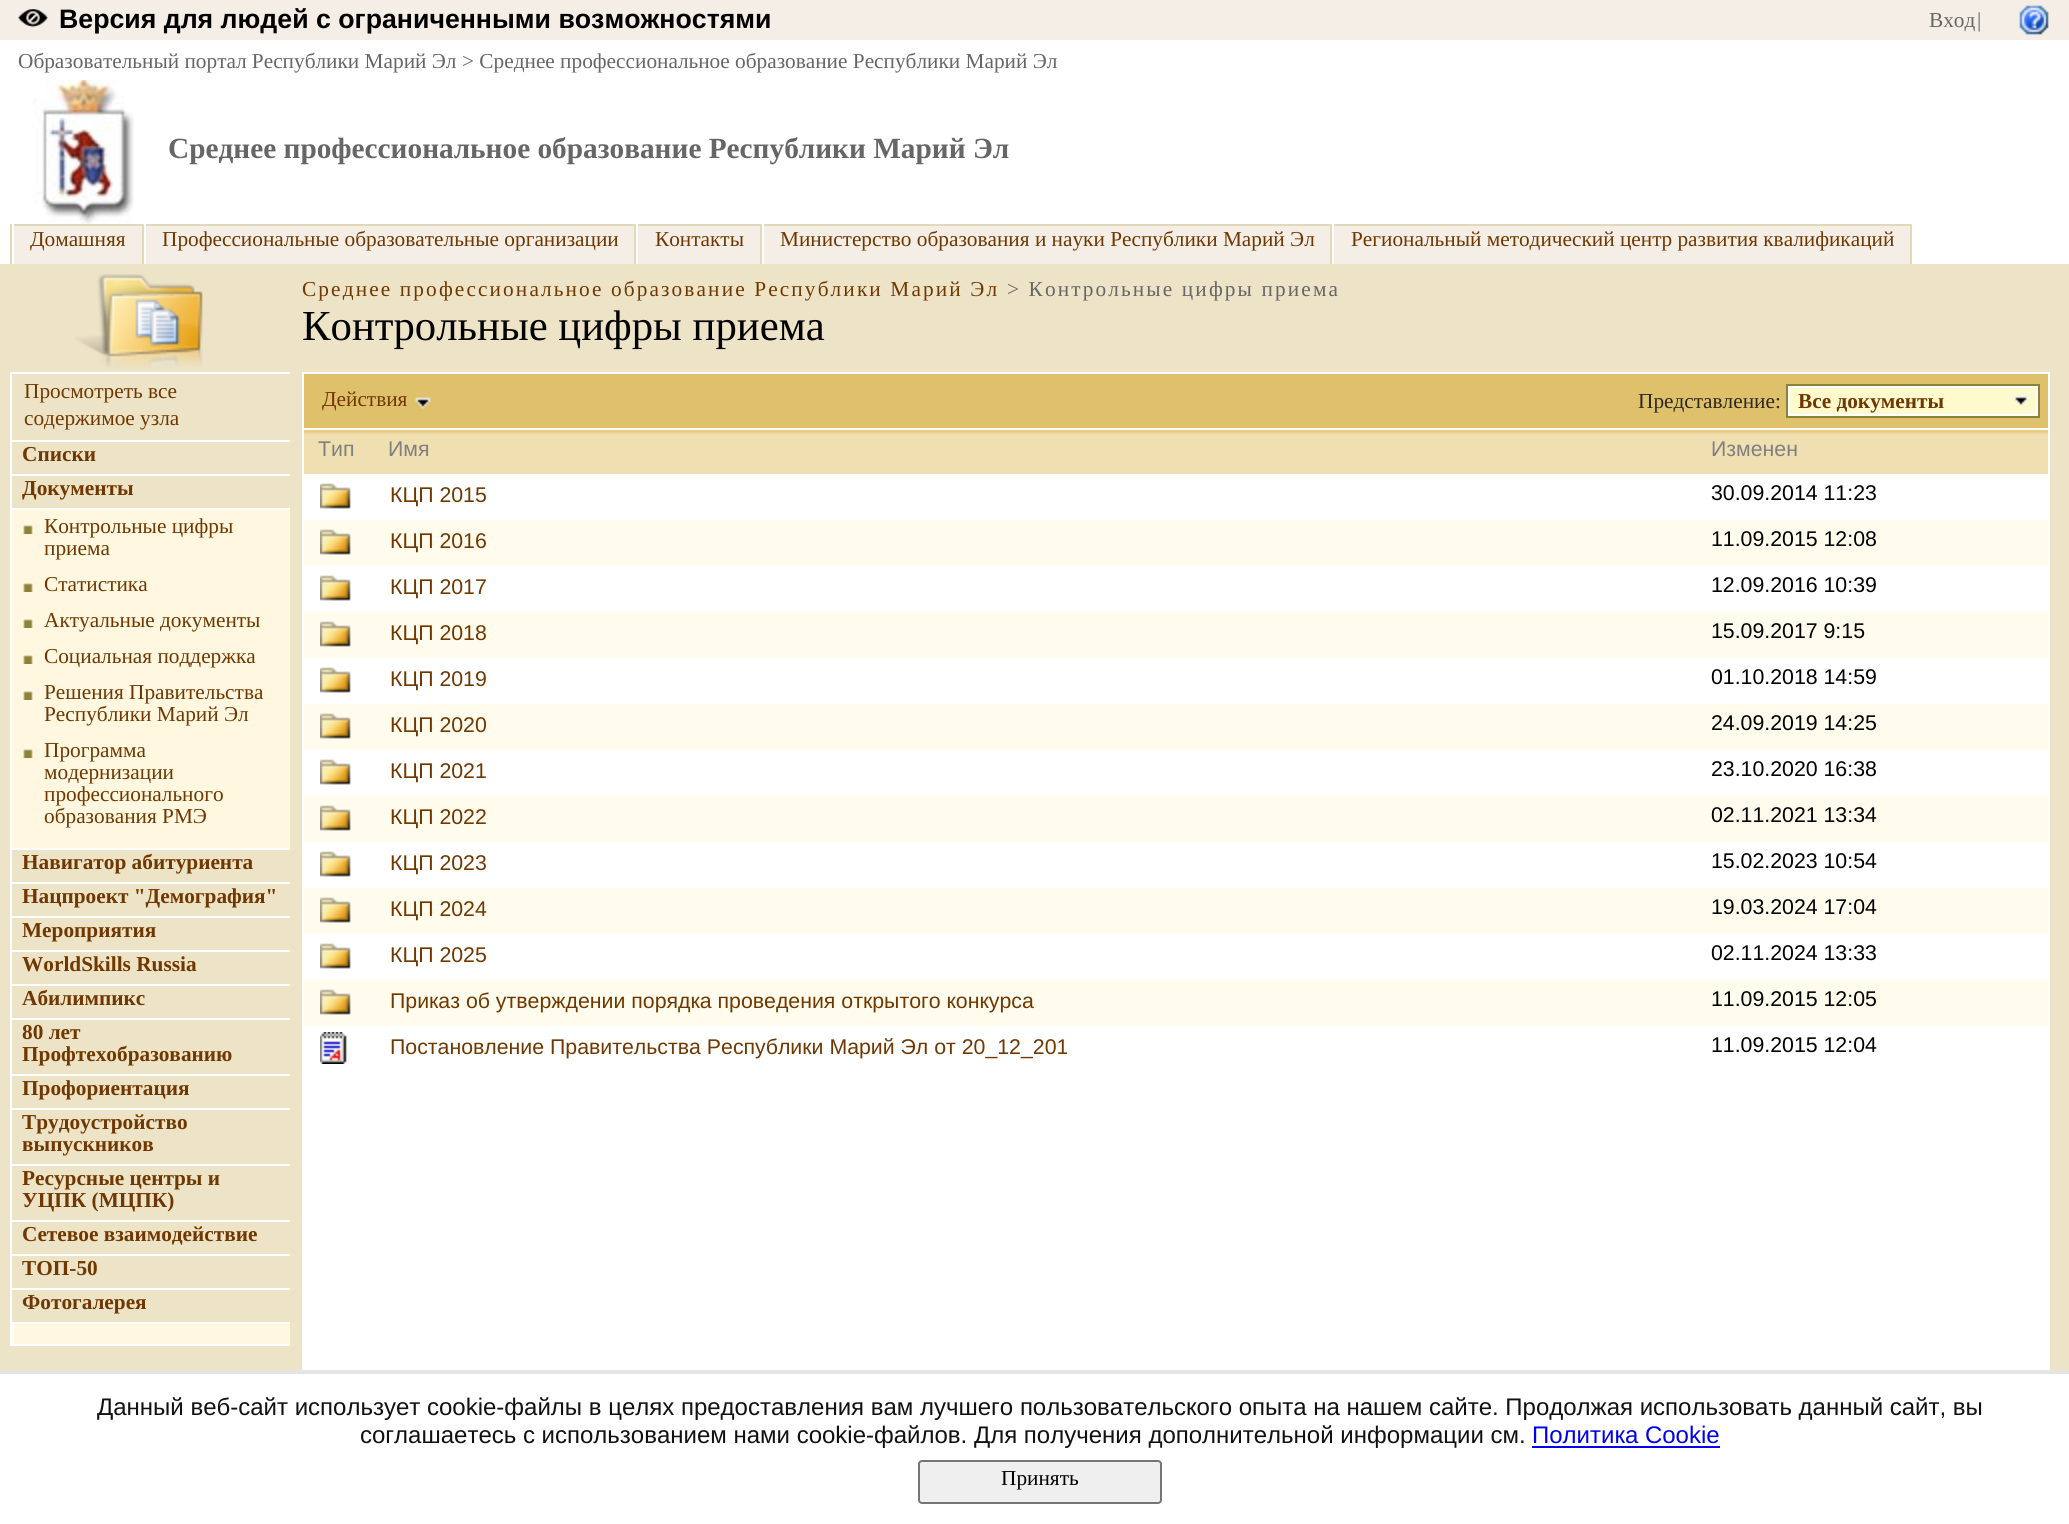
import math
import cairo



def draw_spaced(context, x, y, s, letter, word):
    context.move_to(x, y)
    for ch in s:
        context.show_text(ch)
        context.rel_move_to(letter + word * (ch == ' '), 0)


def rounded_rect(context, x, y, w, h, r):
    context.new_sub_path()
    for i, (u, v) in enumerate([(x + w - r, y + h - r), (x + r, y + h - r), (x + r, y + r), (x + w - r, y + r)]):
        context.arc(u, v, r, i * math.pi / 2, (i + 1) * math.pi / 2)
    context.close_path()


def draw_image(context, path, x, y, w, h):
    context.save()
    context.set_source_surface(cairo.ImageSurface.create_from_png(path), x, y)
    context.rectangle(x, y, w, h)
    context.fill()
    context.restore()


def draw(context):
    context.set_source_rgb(1, 1, 1)
    context.paint()
    context.set_source_rgb(244 / 255, 238 / 255, 230 / 255)
    context.rectangle(0, 0, 2069, 40)
    context.fill()
    draw_image(context, "images/1.png", 18, 8, 30, 20)
    draw_image(context, "images/2.png", 2019, 5, 30, 30)
    draw_image(context, "images/3.png", 33, 80, 101, 144)
    context.set_source_rgb(226 / 255, 216 / 255, 186 / 255)
    context.rectangle(10, 224, 2, 40)
    context.fill()
    context.set_source_rgb(244 / 255, 238 / 255, 230 / 255)
    context.rectangle(14, 226, 128, 38)
    context.fill()
    context.set_source_rgb(226 / 255, 216 / 255, 186 / 255)
    context.rectangle(12, 224, 1900, 2)
    context.fill()
    context.rectangle(142, 224, 2, 40)
    context.fill()
    context.set_source_rgb(1, 1, 1)
    context.rectangle(12, 224, 2, 2)
    context.fill()
    context.set_source_rgb(244 / 255, 238 / 255, 230 / 255)
    context.rectangle(146, 226, 488, 38)
    context.fill()
    context.set_source_rgb(226 / 255, 216 / 255, 186 / 255)
    context.rectangle(634, 224, 2, 40)
    context.fill()
    context.set_source_rgb(1, 1, 1)
    context.rectangle(144, 224, 2, 2)
    context.fill()
    context.set_source_rgb(244 / 255, 238 / 255, 230 / 255)
    context.rectangle(638, 226, 122, 38)
    context.fill()
    context.set_source_rgb(226 / 255, 216 / 255, 186 / 255)
    context.rectangle(760, 224, 2, 40)
    context.fill()
    context.set_source_rgb(1, 1, 1)
    context.rectangle(636, 224, 2, 2)
    context.fill()
    context.set_source_rgb(244 / 255, 238 / 255, 230 / 255)
    context.rectangle(764, 226, 566, 38)
    context.fill()
    context.set_source_rgb(226 / 255, 216 / 255, 186 / 255)
    context.rectangle(1330, 224, 2, 40)
    context.fill()
    context.set_source_rgb(1, 1, 1)
    context.rectangle(762, 224, 2, 2)
    context.fill()
    context.set_source_rgb(244 / 255, 238 / 255, 230 / 255)
    context.rectangle(1334, 226, 576, 38)
    context.fill()
    context.set_source_rgb(226 / 255, 216 / 255, 186 / 255)
    context.rectangle(1910, 224, 2, 40)
    context.fill()
    context.set_source_rgb(1, 1, 1)
    context.rectangle(1332, 224, 2, 2)
    context.fill()
    context.set_source_rgb(237 / 255, 227 / 255, 199 / 255)
    context.rectangle(0, 264, 2069, 108)
    context.fill()
    draw_image(context, "images/4.png", 75, 274, 128, 95)
    context.rectangle(0, 372, 290, 998)
    context.fill()
    context.set_source_rgb(1, 247 / 255, 224 / 255)
    context.rectangle(12, 510, 278, 834)
    context.fill()
    context.rectangle(11, 373, 280, 972)
    context.set_source_rgb(1, 1, 1)
    context.stroke()
    context.rectangle(12, 440, 280, 2)
    context.fill()
    context.rectangle(12, 474, 280, 2)
    context.fill()
    context.rectangle(12, 508, 280, 2)
    context.fill()
    draw_image(context, "images/5.png", 23, 525, 10, 9)
    draw_image(context, "images/5.png", 23, 583, 10, 9)
    draw_image(context, "images/5.png", 23, 619, 10, 9)
    draw_image(context, "images/5.png", 23, 655, 10, 9)
    draw_image(context, "images/5.png", 23, 691, 10, 9)
    draw_image(context, "images/5.png", 23, 749, 10, 9)
    context.rectangle(12, 848, 280, 2)
    context.fill()
    context.set_source_rgb(237 / 255, 227 / 255, 199 / 255)
    context.rectangle(12, 850, 278, 32)
    context.fill()
    context.set_source_rgb(1, 1, 1)
    context.rectangle(12, 882, 280, 2)
    context.fill()
    context.set_source_rgb(237 / 255, 227 / 255, 199 / 255)
    context.rectangle(12, 884, 278, 32)
    context.fill()
    context.set_source_rgb(1, 1, 1)
    context.rectangle(12, 916, 280, 2)
    context.fill()
    context.set_source_rgb(237 / 255, 227 / 255, 199 / 255)
    context.rectangle(12, 918, 278, 32)
    context.fill()
    context.set_source_rgb(1, 1, 1)
    context.rectangle(12, 950, 280, 2)
    context.fill()
    context.set_source_rgb(237 / 255, 227 / 255, 199 / 255)
    context.rectangle(12, 952, 278, 32)
    context.fill()
    context.set_source_rgb(1, 1, 1)
    context.rectangle(12, 984, 280, 2)
    context.fill()
    context.set_source_rgb(237 / 255, 227 / 255, 199 / 255)
    context.rectangle(12, 986, 278, 32)
    context.fill()
    context.set_source_rgb(1, 1, 1)
    context.rectangle(12, 1018, 280, 2)
    context.fill()
    context.set_source_rgb(237 / 255, 227 / 255, 199 / 255)
    context.rectangle(12, 1020, 278, 54)
    context.fill()
    context.set_source_rgb(1, 1, 1)
    context.rectangle(12, 1074, 280, 2)
    context.fill()
    context.set_source_rgb(237 / 255, 227 / 255, 199 / 255)
    context.rectangle(12, 1076, 278, 32)
    context.fill()
    context.set_source_rgb(1, 1, 1)
    context.rectangle(12, 1108, 280, 2)
    context.fill()
    context.set_source_rgb(237 / 255, 227 / 255, 199 / 255)
    context.rectangle(12, 1110, 278, 54)
    context.fill()
    context.set_source_rgb(1, 1, 1)
    context.rectangle(12, 1164, 280, 2)
    context.fill()
    context.set_source_rgb(237 / 255, 227 / 255, 199 / 255)
    context.rectangle(12, 1166, 278, 54)
    context.fill()
    context.set_source_rgb(1, 1, 1)
    context.rectangle(12, 1220, 280, 2)
    context.fill()
    context.set_source_rgb(237 / 255, 227 / 255, 199 / 255)
    context.rectangle(12, 1222, 278, 32)
    context.fill()
    context.set_source_rgb(1, 1, 1)
    context.rectangle(12, 1254, 280, 2)
    context.fill()
    context.set_source_rgb(237 / 255, 227 / 255, 199 / 255)
    context.rectangle(12, 1256, 278, 32)
    context.fill()
    context.set_source_rgb(1, 1, 1)
    context.rectangle(12, 1288, 280, 2)
    context.fill()
    context.set_source_rgb(237 / 255, 227 / 255, 199 / 255)
    context.rectangle(12, 1290, 278, 32)
    context.fill()
    context.set_source_rgb(1, 1, 1)
    context.rectangle(12, 1322, 278, 2)
    context.fill()
    context.rectangle(12, 1324, 2, 20)
    context.fill()
    context.set_source_rgb(237 / 255, 227 / 255, 199 / 255)
    context.rectangle(290, 372, 12, 998)
    context.fill()
    context.set_source_rgb(224 / 255, 193 / 255, 107 / 255)
    context.rectangle(304, 374, 1744, 54)
    context.fill()
    draw_image(context, "images/6.png", 415, 397, 16, 12)
    context.set_source_rgb(1, 249 / 255, 206 / 255)
    context.rectangle(1790, 388, 246, 26)
    context.fill()
    context.rectangle(1787, 385, 252, 32)
    context.set_source_rgb(140 / 255, 130 / 255, 57 / 255)
    context.stroke()
    draw_image(context, "images/7.png", 2013, 395, 16, 12)
    context.rectangle(1789, 387, 248, 28)
    context.set_source_rgb(1, 1, 1)
    context.stroke()
    context.set_source_rgb(239 / 255, 223 / 255, 177 / 255)
    context.rectangle(304, 434, 1744, 40)
    context.fill()
    draw_image(context, "images/8.png", 304, 430, 70, 4)
    draw_image(context, "images/9.png", 374, 430, 1324, 4)
    draw_image(context, "images/10.png", 1698, 430, 350, 4)
    draw_image(context, "images/11.png", 320, 483, 31, 26)
    context.set_source_rgb(1, 252 / 255, 237 / 255)
    context.rectangle(304, 520, 1744, 46)
    context.fill()
    draw_image(context, "images/12.png", 320, 529, 31, 26)
    draw_image(context, "images/11.png", 320, 575, 31, 26)
    context.rectangle(304, 612, 1744, 46)
    context.fill()
    draw_image(context, "images/12.png", 320, 621, 31, 26)
    draw_image(context, "images/11.png", 320, 667, 31, 26)
    context.rectangle(304, 704, 1744, 46)
    context.fill()
    draw_image(context, "images/12.png", 320, 713, 31, 26)
    draw_image(context, "images/11.png", 320, 759, 31, 26)
    context.rectangle(304, 796, 1744, 46)
    context.fill()
    draw_image(context, "images/12.png", 320, 805, 31, 26)
    draw_image(context, "images/11.png", 320, 851, 31, 26)
    context.rectangle(304, 888, 1744, 46)
    context.fill()
    draw_image(context, "images/12.png", 320, 897, 31, 26)
    draw_image(context, "images/11.png", 320, 943, 31, 26)
    context.rectangle(304, 980, 1744, 46)
    context.fill()
    draw_image(context, "images/12.png", 320, 989, 31, 26)
    draw_image(context, "images/13.png", 320, 1032, 27, 32)
    context.set_source_rgb(237 / 255, 227 / 255, 199 / 255)
    context.rectangle(2050, 372, 19, 998)
    context.fill()
    context.set_source_rgb(227 / 255, 227 / 255, 227 / 255)
    context.rectangle(0, 1370, 2069, 4)
    context.fill()
    context.set_source_rgb(0, 0, 238 / 255)
    context.rectangle(1532, 1446, 188, 2)
    context.fill()
    context.set_source_rgb(239 / 255, 239 / 255, 239 / 255)
    rounded_rect(context, 919, 1461, 242, 42, 3)
    context.fill_preserve()
    context.set_source_rgb(118 / 255, 118 / 255, 118 / 255)
    context.stroke()
    context.select_font_face("Liberation Sans", cairo.FontSlant.NORMAL, cairo.FontWeight.BOLD)
    context.set_font_size(26.7)
    context.set_source_rgb(0, 0, 0)
    context.move_to(59, 28)
    context.show_text("Версия для людей с ограниченными возможностями")
    context.select_font_face("Liberation Serif")
    context.set_font_size(21.3)
    context.set_source_rgb(102 / 255, 102 / 255, 102 / 255)
    context.move_to(1929, 27)
    context.show_text("Вход")
    context.move_to(1977, 27)
    context.show_text("|")
    context.move_to(18, 68)
    context.show_text("Образовательный портал Республики Марий Эл")
    context.move_to(462, 68)
    context.show_text("> Среднее профессиональное образование Республики Марий Эл")
    context.select_font_face("Liberation Serif", cairo.FontSlant.NORMAL, cairo.FontWeight.BOLD)
    context.set_font_size(29.3)
    context.move_to(168, 158)
    context.show_text("Среднее профессиональное образование Республики Марий Эл")
    context.select_font_face("Liberation Serif")
    context.set_font_size(21.3)
    context.set_source_rgb(112 / 255, 56 / 255, 0)
    context.move_to(30, 246)
    context.show_text("Домашняя")
    context.move_to(162, 246)
    context.show_text("Профессиональные образовательные организации")
    context.move_to(655, 246)
    context.show_text("Контакты")
    context.move_to(780, 246)
    context.show_text("Министерство образования и науки Республики Марий Эл")
    context.move_to(1351, 246)
    context.show_text("Региональный методический центр развития квалификаций")
    draw_spaced(context, 302, 296, "Среднее профессиональное образование Республики Марий Эл", 2.13, 0)
    context.set_source_rgb(102 / 255, 102 / 255, 102 / 255)
    draw_spaced(context, 1007, 296, "> Контрольные цифры приема", 2.13, 0)
    context.set_font_size(42.75)
    context.set_source_rgb(0, 0, 0)
    context.move_to(302, 340)
    context.show_text("Контрольные цифры приема")
    context.set_font_size(21.3)
    context.set_source_rgb(112 / 255, 56 / 255, 0)
    context.move_to(24, 398)
    context.show_text("Просмотреть все")
    context.move_to(24, 425)
    context.show_text("содержимое узла")
    context.select_font_face("Liberation Serif", cairo.FontSlant.NORMAL, cairo.FontWeight.BOLD)
    context.move_to(22, 461)
    context.show_text("Списки")
    context.move_to(22, 495)
    context.show_text("Документы")
    context.select_font_face("Liberation Serif")
    context.move_to(44, 533)
    context.show_text("Контрольные цифры")
    context.move_to(44, 555)
    context.show_text("приема")
    context.move_to(44, 591)
    context.show_text("Статистика")
    context.move_to(44, 627)
    context.show_text("Актуальные документы")
    context.move_to(44, 663)
    context.show_text("Социальная поддержка")
    context.move_to(44, 699)
    context.show_text("Решения Правительства")
    context.move_to(44, 721)
    context.show_text("Республики Марий Эл")
    context.move_to(44, 757)
    context.show_text("Программа")
    context.move_to(44, 779)
    context.show_text("модернизации")
    context.move_to(44, 801)
    context.show_text("профессионального")
    context.move_to(44, 823)
    context.show_text("образования РМЭ")
    context.select_font_face("Liberation Serif", cairo.FontSlant.NORMAL, cairo.FontWeight.BOLD)
    context.move_to(22, 869)
    context.show_text("Навигатор абитуриента")
    context.move_to(22, 903)
    context.show_text("Нацпроект \"Демография\"")
    context.move_to(22, 937)
    context.show_text("Мероприятия")
    context.move_to(22, 971)
    context.show_text("WorldSkills Russia")
    context.move_to(22, 1005)
    context.show_text("Абилимпикс")
    context.move_to(22, 1039)
    context.show_text("80 лет")
    context.move_to(22, 1061)
    context.show_text("Профтехобразованию")
    context.move_to(22, 1095)
    context.show_text("Профориентация")
    context.move_to(22, 1129)
    context.show_text("Трудоустройство")
    context.move_to(22, 1151)
    context.show_text("выпускников")
    context.move_to(22, 1185)
    context.show_text("Ресурсные центры и")
    context.move_to(22, 1207)
    context.show_text("УЦПК (МЦПК)")
    context.move_to(22, 1241)
    context.show_text("Сетевое взаимодействие")
    context.move_to(22, 1275)
    context.show_text("ТОП-50")
    context.move_to(22, 1309)
    context.show_text("Фотогалерея")
    context.select_font_face("Liberation Serif")
    context.move_to(322, 406)
    context.show_text("Действия")
    context.set_source_rgb(43 / 255, 40 / 255, 32 / 255)
    context.move_to(1638, 408)
    context.show_text("Представление:")
    context.select_font_face("Liberation Serif", cairo.FontSlant.NORMAL, cairo.FontWeight.BOLD)
    context.set_source_rgb(112 / 255, 56 / 255, 0)
    context.move_to(1798, 408)
    context.show_text("Все документы")
    context.select_font_face("Liberation Sans")
    context.set_source_rgb(128 / 255, 128 / 255, 128 / 255)
    context.move_to(318, 456)
    context.show_text("Тип")
    context.move_to(388, 456)
    context.show_text("Имя")
    context.move_to(1711, 456)
    context.show_text("Изменен")
    context.set_source_rgb(112 / 255, 56 / 255, 0)
    context.move_to(390, 502)
    context.show_text("КЦП 2015")
    context.set_source_rgb(0, 0, 0)
    context.move_to(1711, 500)
    context.show_text("30.09.2014 11:23")
    context.set_source_rgb(112 / 255, 56 / 255, 0)
    context.move_to(390, 548)
    context.show_text("КЦП 2016")
    context.set_source_rgb(0, 0, 0)
    context.move_to(1711, 546)
    context.show_text("11.09.2015 12:08")
    context.set_source_rgb(112 / 255, 56 / 255, 0)
    context.move_to(390, 594)
    context.show_text("КЦП 2017")
    context.set_source_rgb(0, 0, 0)
    context.move_to(1711, 592)
    context.show_text("12.09.2016 10:39")
    context.set_source_rgb(112 / 255, 56 / 255, 0)
    context.move_to(390, 640)
    context.show_text("КЦП 2018")
    context.set_source_rgb(0, 0, 0)
    context.move_to(1711, 638)
    context.show_text("15.09.2017 9:15")
    context.set_source_rgb(112 / 255, 56 / 255, 0)
    context.move_to(390, 686)
    context.show_text("КЦП 2019")
    context.set_source_rgb(0, 0, 0)
    context.move_to(1711, 684)
    context.show_text("01.10.2018 14:59")
    context.set_source_rgb(112 / 255, 56 / 255, 0)
    context.move_to(390, 732)
    context.show_text("КЦП 2020")
    context.set_source_rgb(0, 0, 0)
    context.move_to(1711, 730)
    context.show_text("24.09.2019 14:25")
    context.set_source_rgb(112 / 255, 56 / 255, 0)
    context.move_to(390, 778)
    context.show_text("КЦП 2021")
    context.set_source_rgb(0, 0, 0)
    context.move_to(1711, 776)
    context.show_text("23.10.2020 16:38")
    context.set_source_rgb(112 / 255, 56 / 255, 0)
    context.move_to(390, 824)
    context.show_text("КЦП 2022")
    context.set_source_rgb(0, 0, 0)
    context.move_to(1711, 822)
    context.show_text("02.11.2021 13:34")
    context.set_source_rgb(112 / 255, 56 / 255, 0)
    context.move_to(390, 870)
    context.show_text("КЦП 2023")
    context.set_source_rgb(0, 0, 0)
    context.move_to(1711, 868)
    context.show_text("15.02.2023 10:54")
    context.set_source_rgb(112 / 255, 56 / 255, 0)
    context.move_to(390, 916)
    context.show_text("КЦП 2024")
    context.set_source_rgb(0, 0, 0)
    context.move_to(1711, 914)
    context.show_text("19.03.2024 17:04")
    context.set_source_rgb(112 / 255, 56 / 255, 0)
    context.move_to(390, 962)
    context.show_text("КЦП 2025")
    context.set_source_rgb(0, 0, 0)
    context.move_to(1711, 960)
    context.show_text("02.11.2024 13:33")
    context.set_source_rgb(112 / 255, 56 / 255, 0)
    context.move_to(390, 1008)
    context.show_text("Приказ об утверждении порядка проведения открытого конкурса")
    context.set_source_rgb(0, 0, 0)
    context.move_to(1711, 1006)
    context.show_text("11.09.2015 12:05")
    context.set_source_rgb(112 / 255, 56 / 255, 0)
    context.move_to(390, 1054)
    context.show_text("Постановление Правительства Республики Марий Эл от 20_12_201")
    context.set_source_rgb(0, 0, 0)
    context.move_to(1711, 1052)
    context.show_text("11.09.2015 12:04")
    context.set_font_size(24)
    context.set_source_rgb(17 / 255, 17 / 255, 17 / 255)
    context.move_to(97, 1415)
    context.show_text("Данный веб-сайт использует cookie-файлы в целях предоставления вам лучшего пользовательского опыта на нашем сайте. Продолжая использовать данный сайт, вы")
    context.move_to(360, 1443)
    context.show_text("соглашаетесь с использованием нами cookie-файлов. Для получения дополнительной информации см.")
    context.set_source_rgb(0, 0, 238 / 255)
    context.move_to(1532, 1443)
    context.show_text("Политика Cookie")
    context.select_font_face("Liberation Serif")
    context.set_font_size(21.3)
    context.set_source_rgb(0, 0, 0)
    context.move_to(1001, 1485)
    context.show_text("Принять")


surface = cairo.ImageSurface(cairo.Format.RGB24, 2069, 1524)
context = cairo.Context(surface)
options = cairo.FontOptions()
options.set_hint_metrics(cairo.HintMetrics.OFF)
options.set_hint_style(cairo.HintStyle.NONE)
context.set_font_options(options)
context.set_miter_limit(4)
draw(context)
surface.write_to_png("out.png")
